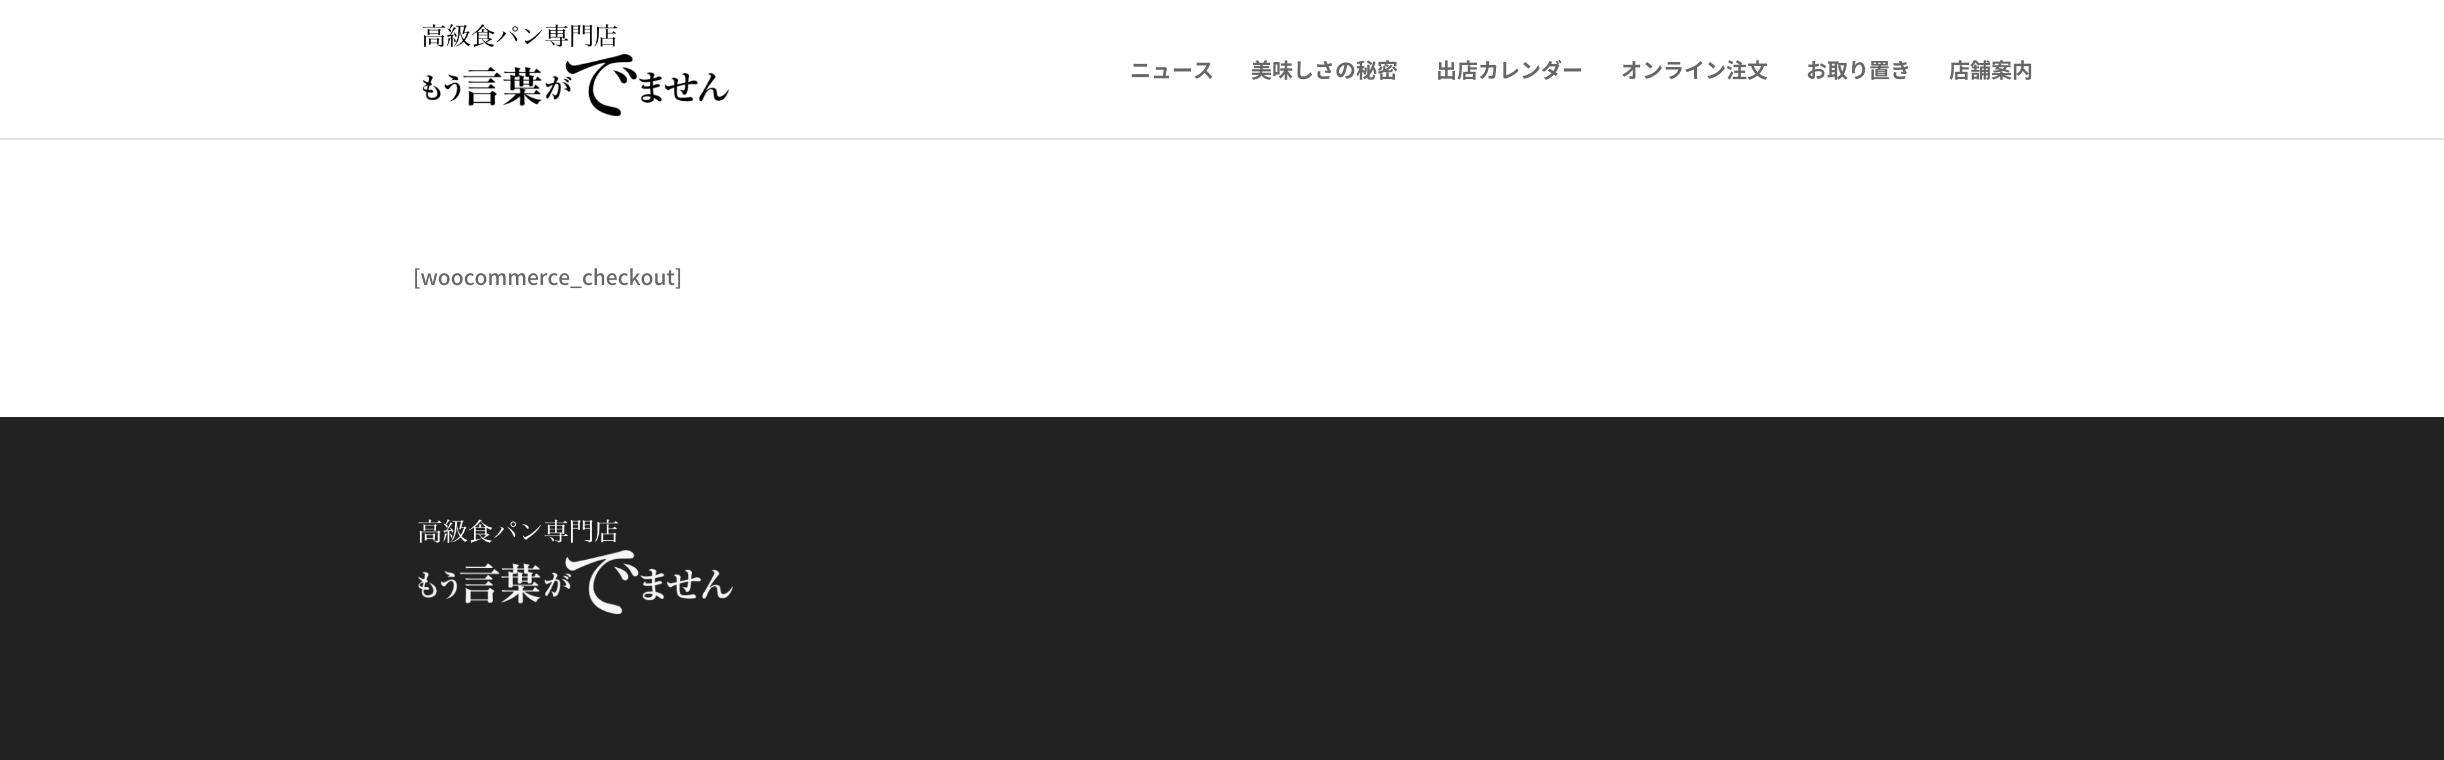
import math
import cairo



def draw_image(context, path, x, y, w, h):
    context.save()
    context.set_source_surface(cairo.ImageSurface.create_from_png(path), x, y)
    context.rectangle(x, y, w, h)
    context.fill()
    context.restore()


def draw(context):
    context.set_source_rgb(1, 1, 1)
    context.paint()
    context.set_source_rgb(230 / 255, 230 / 255, 230 / 255)
    context.rectangle(0, 138, 2444, 2)
    context.fill()
    draw_image(context, "images/1.png", 422, 24, 307, 93)
    context.set_source_rgb(34 / 255, 34 / 255, 34 / 255)
    context.rectangle(0, 417, 2444, 343)
    context.fill()
    draw_image(context, "images/2.png", 418, 519, 315, 96)
    context.select_font_face("Noto Sans JP", cairo.FontSlant.NORMAL, cairo.FontWeight.BOLD)
    context.set_font_size(21)
    context.set_source_rgb(102 / 255, 102 / 255, 102 / 255)
    context.move_to(1130, 78)
    context.show_text("ニュース")
    context.move_to(1251, 78)
    context.show_text("美味しさの秘密")
    context.move_to(1436, 78)
    context.show_text("出店カレンダー")
    context.move_to(1621, 78)
    context.show_text("オンライン注文")
    context.move_to(1806, 78)
    context.show_text("お取り置き")
    context.move_to(1949, 78)
    context.show_text("店舗案内")
    context.select_font_face("Noto Sans JP Medium")
    context.move_to(413, 285)
    context.show_text("[woocommerce_checkout]")


surface = cairo.ImageSurface(cairo.Format.RGB24, 2444, 760)
context = cairo.Context(surface)
options = cairo.FontOptions()
options.set_hint_metrics(cairo.HintMetrics.OFF)
options.set_hint_style(cairo.HintStyle.NONE)
context.set_font_options(options)
context.set_miter_limit(4)
draw(context)
surface.write_to_png("out.png")
